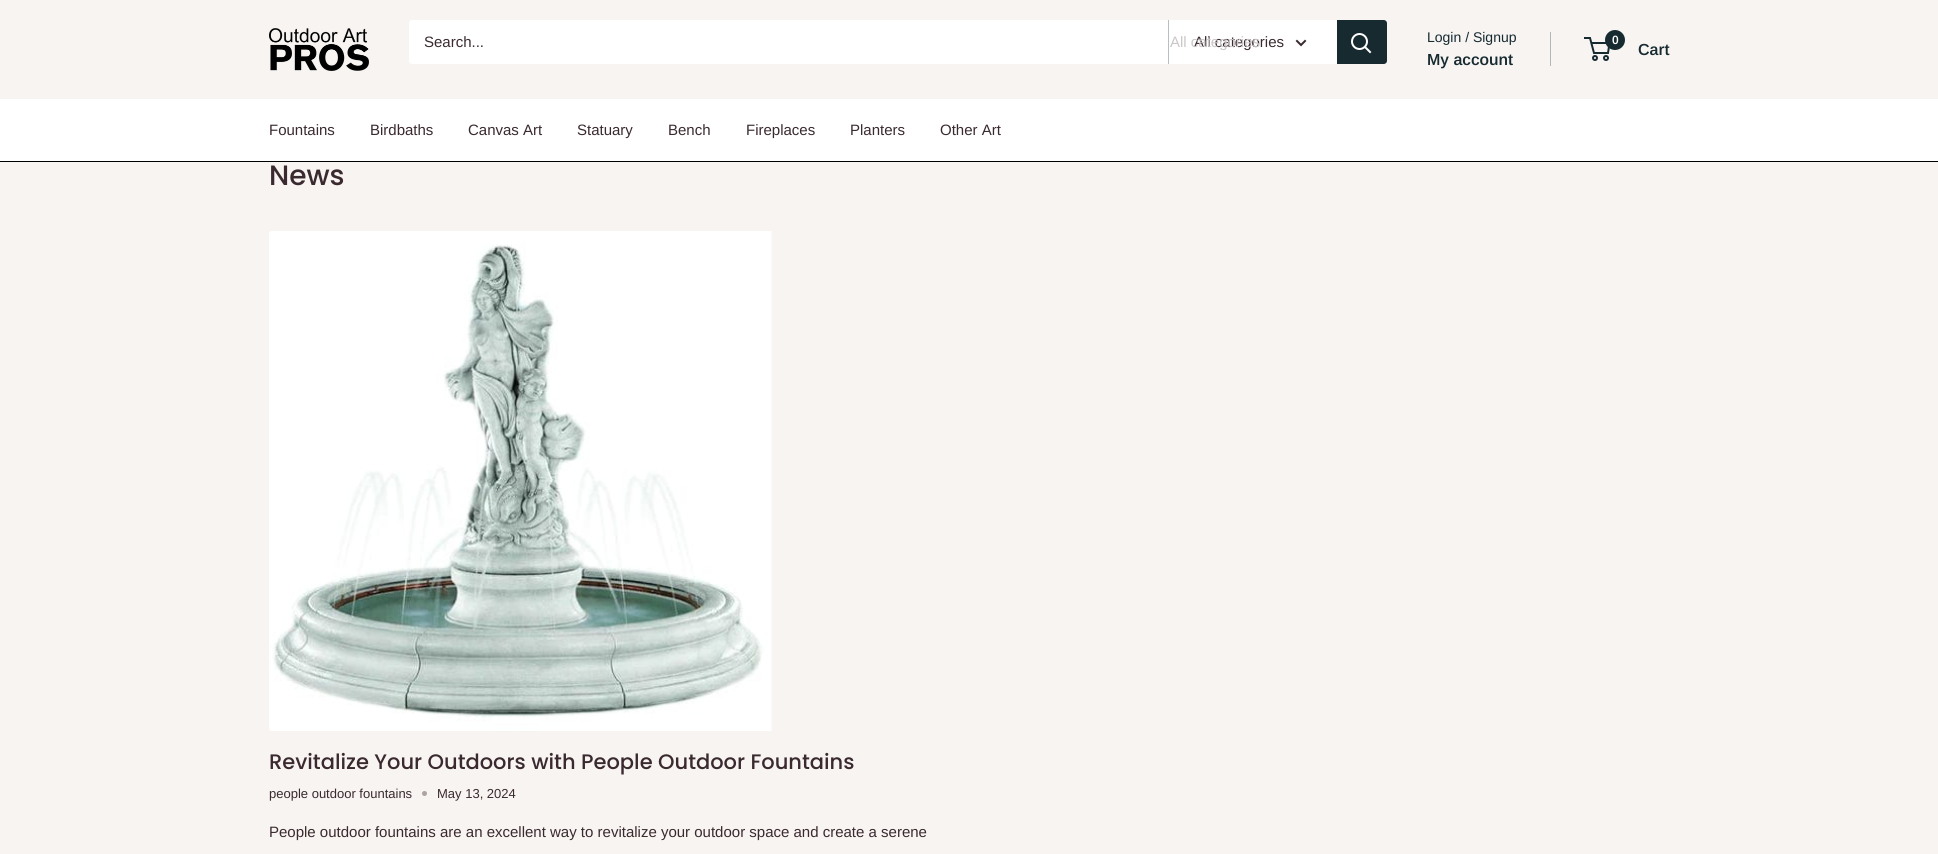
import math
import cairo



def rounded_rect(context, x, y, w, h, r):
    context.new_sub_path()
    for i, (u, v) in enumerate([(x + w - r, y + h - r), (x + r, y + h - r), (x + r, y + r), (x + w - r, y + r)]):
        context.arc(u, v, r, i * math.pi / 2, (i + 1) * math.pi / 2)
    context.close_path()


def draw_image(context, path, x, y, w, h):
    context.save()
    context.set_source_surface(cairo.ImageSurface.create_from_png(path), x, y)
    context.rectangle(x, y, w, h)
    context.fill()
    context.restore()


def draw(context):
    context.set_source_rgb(247 / 255, 244 / 255, 242 / 255)
    context.paint()
    draw_image(context, "images/1.png", 269, 28, 100, 43)
    context.set_source_rgb(1, 1, 1)
    rounded_rect(context, 409, 20, 978, 44, 3)
    context.fill()
    context.set_source_rgb(185 / 255, 191 / 255, 193 / 255)
    context.rectangle(1168, 20, 1, 44)
    context.fill()
    context.new_path()
    context.move_to(1305, 41)
    context.line_to(1301, 45)
    context.line_to(1297, 41)
    context.set_source_rgb(58 / 255, 42 / 255, 47 / 255)
    context.set_line_cap(cairo.LineCap.SQUARE)
    context.stroke()
    context.set_source_rgb(22 / 255, 42 / 255, 48 / 255)
    context.new_path()
    context.move_to(1337, 20)
    context.line_to(1384, 20)
    context.curve_to(1385.5, 20, 1387, 21.5, 1387, 23)
    context.line_to(1387, 61)
    context.curve_to(1387, 62.5, 1385.5, 64, 1384, 64)
    context.line_to(1337, 64)
    context.close_path()
    context.fill()
    context.new_path()
    context.move_to(1370, 52)
    context.line_to(1365, 47)
    context.set_source_rgb(1, 1, 1)
    context.stroke()
    context.arc(1359.5, 41.5, 7.5, 0, 2 * math.pi)
    context.set_line_cap(cairo.LineCap.BUTT)
    context.stroke()
    context.set_source_rgb(180 / 255, 183 / 255, 184 / 255)
    context.rectangle(1550, 32, 1, 34)
    context.fill()
    context.arc(1595, 58, 2, 0, 2 * math.pi)
    context.set_source_rgb(22 / 255, 42 / 255, 48 / 255)
    context.stroke()
    context.arc(1606, 58, 2, 0, 2 * math.pi)
    context.stroke()
    context.new_path()
    context.move_to(1591.5, 43)
    context.line_to(1609.5, 43)
    context.line_to(1608, 53)
    context.line_to(1594, 53)
    context.line_to(1590, 38)
    context.line_to(1584, 38)
    context.stroke()
    context.arc(1615, 40, 10, 0, 2 * math.pi)
    context.fill()
    context.set_source_rgb(1, 1, 1)
    context.rectangle(0, 99, 1938, 62)
    context.fill()
    context.set_source_rgb(0, 0, 0)
    context.rectangle(0, 161, 1938, 1)
    context.fill()
    draw_image(context, "images/2.png", 269, 231, 503, 500)
    context.set_source_rgb(171 / 255, 163 / 255, 164 / 255)
    context.arc(424.5, 793.5, 2.5, 0, 2 * math.pi)
    context.fill()
    context.select_font_face("Arimo")
    context.set_font_size(15)
    context.set_source_rgb(58 / 255, 42 / 255, 47 / 255)
    context.move_to(424, 47)
    context.show_text("Search...")
    context.move_to(1194, 47)
    context.show_text("All categories")
    context.set_source_rgb(203 / 255, 199 / 255, 200 / 255)
    context.move_to(1170, 47)
    context.show_text("All categories")
    context.set_font_size(14)
    context.set_source_rgb(22 / 255, 42 / 255, 48 / 255)
    context.move_to(1427, 42)
    context.show_text("Login / Signup")
    context.select_font_face("Arimo SemiBold")
    context.set_font_size(16)
    context.move_to(1427, 65)
    context.show_text("My account")
    context.set_font_size(12)
    context.set_source_rgb(1, 1, 1)
    context.move_to(1612, 44)
    context.show_text("0")
    context.set_font_size(16)
    context.set_source_rgb(22 / 255, 42 / 255, 48 / 255)
    context.move_to(1638, 55)
    context.show_text("Cart")
    context.select_font_face("Arimo")
    context.set_font_size(15)
    context.set_source_rgb(58 / 255, 42 / 255, 47 / 255)
    context.move_to(269, 135)
    context.show_text("Fountains")
    context.move_to(370, 135)
    context.show_text("Birdbaths")
    context.move_to(468, 135)
    context.show_text("Canvas Art")
    context.move_to(577, 135)
    context.show_text("Statuary")
    context.move_to(668, 135)
    context.show_text("Bench")
    context.move_to(746, 135)
    context.show_text("Fireplaces")
    context.move_to(850, 135)
    context.show_text("Planters")
    context.move_to(940, 135)
    context.show_text("Other Art")
    context.select_font_face("Poppins Medium")
    context.set_font_size(28)
    context.move_to(269, 185)
    context.show_text("News")
    context.set_font_size(21)
    context.move_to(269, 769)
    context.show_text("Revitalize Your Outdoors with People Outdoor Fountains")
    context.select_font_face("Arimo")
    context.set_font_size(13)
    context.move_to(269, 798)
    context.show_text("people outdoor fountains")
    context.move_to(437, 798)
    context.show_text("May 13, 2024")
    context.set_font_size(15)
    context.move_to(269, 837)
    context.show_text("People outdoor fountains are an excellent way to revitalize your outdoor space and create a serene")


surface = cairo.ImageSurface(cairo.Format.RGB24, 1938, 854)
context = cairo.Context(surface)
options = cairo.FontOptions()
options.set_hint_metrics(cairo.HintMetrics.OFF)
options.set_hint_style(cairo.HintStyle.NONE)
context.set_font_options(options)
context.set_miter_limit(4)
draw(context)
surface.write_to_png("out.png")
